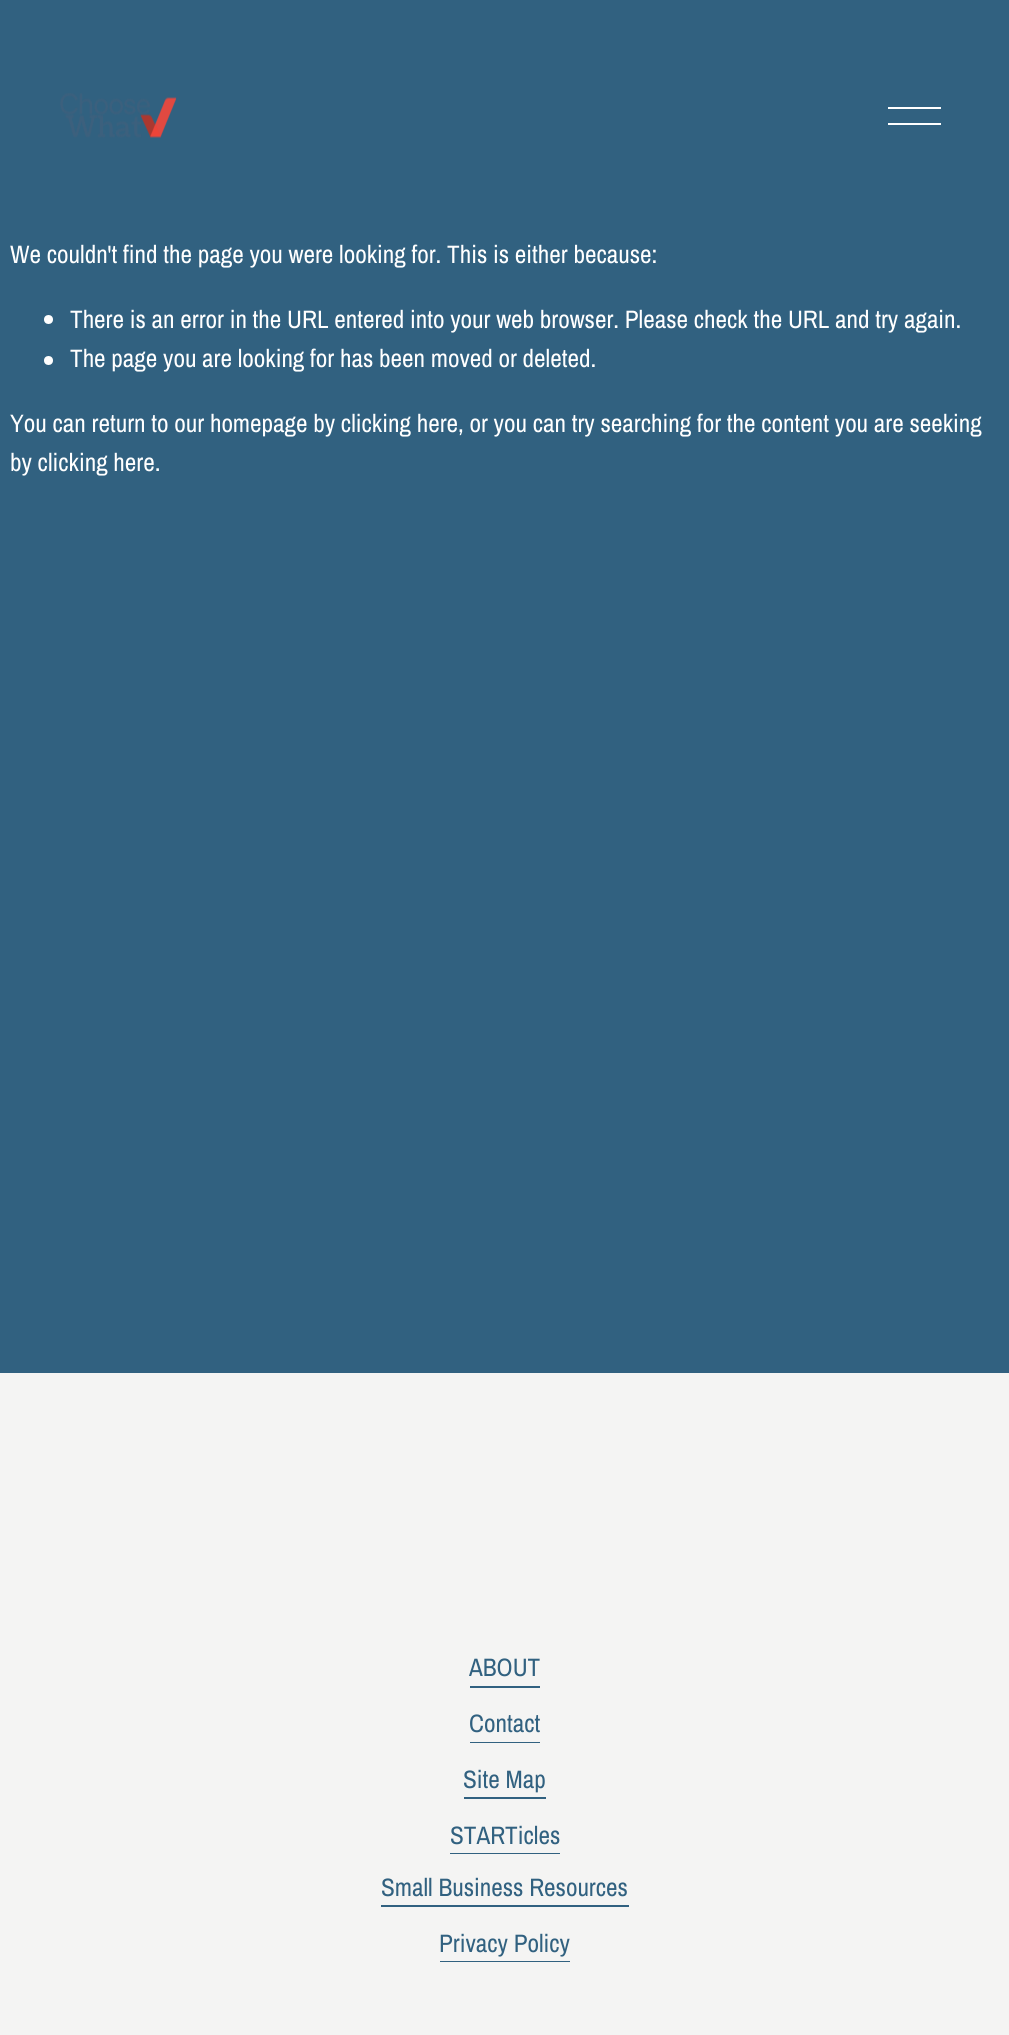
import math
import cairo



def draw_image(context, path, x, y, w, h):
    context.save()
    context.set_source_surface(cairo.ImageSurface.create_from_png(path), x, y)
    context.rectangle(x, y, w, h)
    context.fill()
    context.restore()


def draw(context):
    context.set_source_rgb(49 / 255, 97 / 255, 128 / 255)
    context.paint()
    draw_image(context, "images/1.png", 60, 93, 117, 45)
    context.set_source_rgb(1, 1, 1)
    context.rectangle(888, 107, 53, 2)
    context.fill()
    context.rectangle(888, 123, 53, 2)
    context.fill()
    context.arc(48.5, 319.5, 4.5, 0, 2 * math.pi)
    context.fill()
    context.arc(48.5, 360.5, 4.5, 0, 2 * math.pi)
    context.fill()
    context.set_source_rgb(244 / 255, 244 / 255, 243 / 255)
    context.rectangle(0, 1373, 1009, 662)
    context.fill()
    context.set_source_rgb(49 / 255, 97 / 255, 128 / 255)
    context.rectangle(470, 1686, 70, 2)
    context.fill()
    context.rectangle(470, 1742, 70, 1)
    context.fill()
    context.rectangle(464, 1797, 82, 2)
    context.fill()
    context.rectangle(450, 1853, 110, 1)
    context.fill()
    context.rectangle(381, 1905, 248, 2)
    context.fill()
    context.rectangle(440, 1961, 130, 1)
    context.fill()
    context.select_font_face("Archivo Narrow")
    context.set_font_size(25.2)
    context.set_source_rgb(1, 1, 1)
    context.move_to(10, 263)
    context.show_text("We couldn't find the page you were looking for. This is either because:")
    context.move_to(70, 328)
    context.show_text("There is an error in the URL entered into your web browser. Please check the URL and try again.")
    context.move_to(70, 367)
    context.show_text("The page you are looking for has been moved or deleted.")
    context.move_to(10, 432)
    context.show_text("You can return to our homepage by clicking here, or you can try searching for the content you are seeking")
    context.move_to(10, 471)
    context.show_text("by clicking here.")
    context.set_source_rgb(49 / 255, 97 / 255, 128 / 255)
    context.move_to(469, 1676)
    context.show_text("ABOUT")
    context.move_to(469, 1732)
    context.show_text("Contact")
    context.move_to(463, 1788)
    context.show_text("Site Map")
    context.move_to(450, 1844)
    context.show_text("STARTicles")
    context.move_to(381, 1896)
    context.show_text("Small Business Resources")
    context.move_to(439, 1952)
    context.show_text("Privacy Policy")


surface = cairo.ImageSurface(cairo.Format.RGB24, 1009, 2035)
context = cairo.Context(surface)
options = cairo.FontOptions()
options.set_hint_metrics(cairo.HintMetrics.OFF)
options.set_hint_style(cairo.HintStyle.NONE)
context.set_font_options(options)
context.set_miter_limit(4)
draw(context)
surface.write_to_png("out.png")
